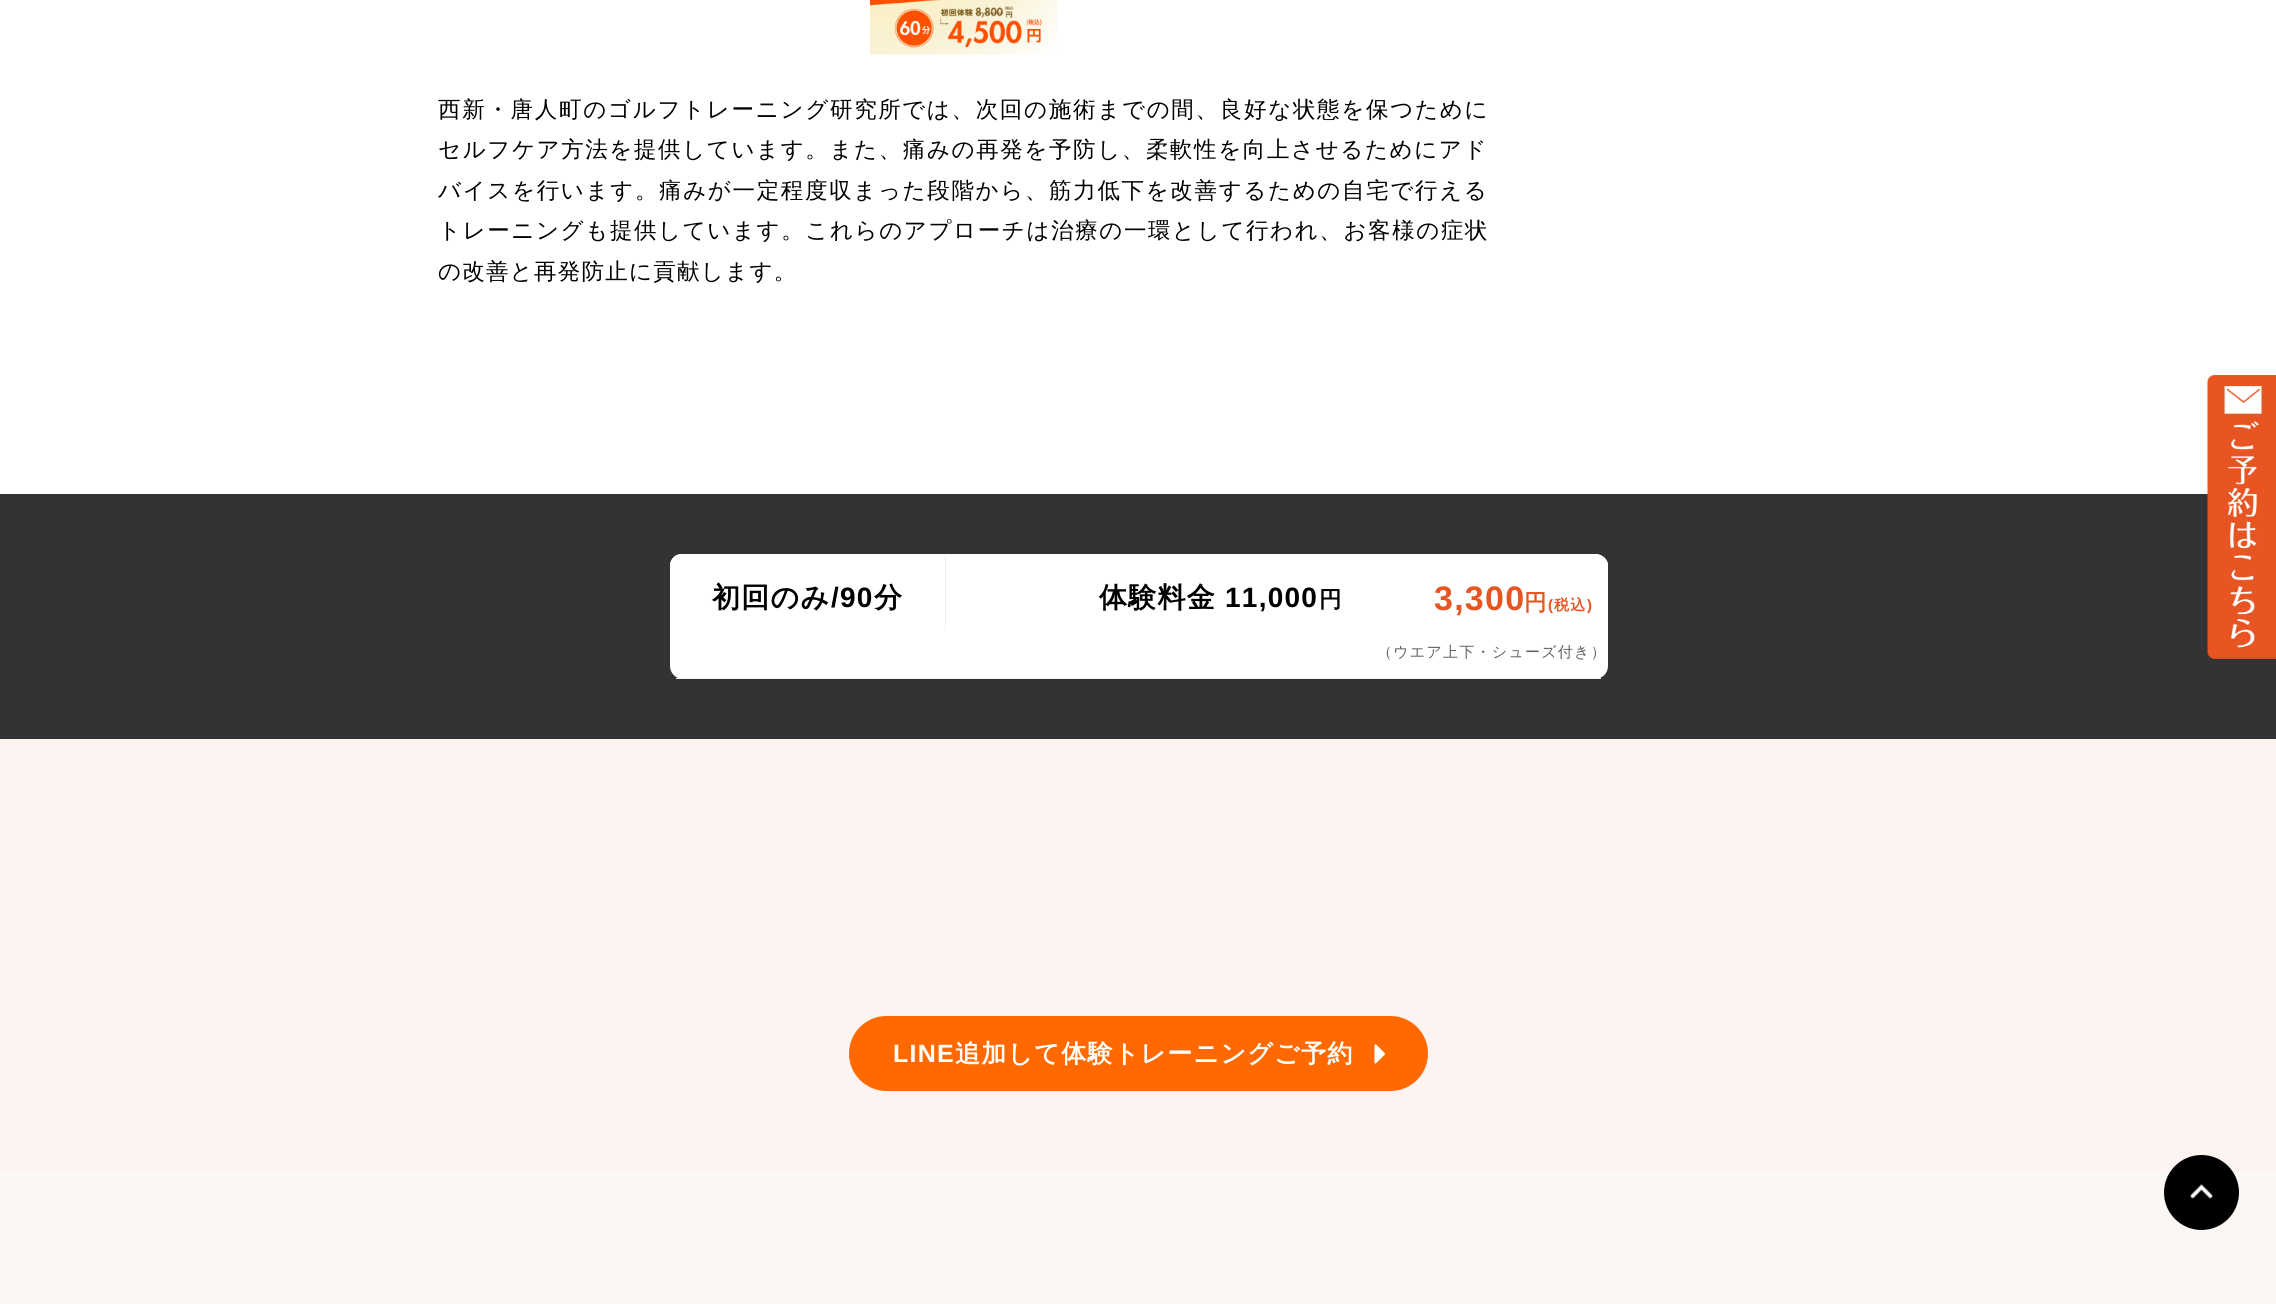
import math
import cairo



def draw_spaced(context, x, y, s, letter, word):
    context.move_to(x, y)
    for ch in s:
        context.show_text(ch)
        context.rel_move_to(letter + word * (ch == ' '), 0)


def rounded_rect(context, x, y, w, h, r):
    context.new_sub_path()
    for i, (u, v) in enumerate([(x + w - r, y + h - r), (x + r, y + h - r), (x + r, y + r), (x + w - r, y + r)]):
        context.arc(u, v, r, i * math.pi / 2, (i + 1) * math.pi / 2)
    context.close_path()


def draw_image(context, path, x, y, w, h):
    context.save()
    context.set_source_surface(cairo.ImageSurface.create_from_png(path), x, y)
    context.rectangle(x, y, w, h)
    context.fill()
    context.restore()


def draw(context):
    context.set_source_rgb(1, 1, 1)
    context.paint()
    draw_image(context, "images/1.png", 870, 0, 188, 55)
    context.set_source_rgb(251 / 255, 247 / 255, 244 / 255)
    context.rectangle(0, 1171, 2276, 133)
    context.fill()
    context.set_source_rgb(51 / 255, 51 / 255, 51 / 255)
    context.rectangle(0, 494, 2276, 245)
    context.fill()
    context.set_source_rgb(1, 1, 1)
    rounded_rect(context, 670, 554, 938, 125, 13)
    context.fill()
    context.set_source_rgb(240 / 255, 240 / 255, 240 / 255)
    context.rectangle(676, 678, 925, 1)
    context.fill()
    context.set_source_rgb(1, 1, 1)
    context.new_path()
    context.move_to(670, 566)
    context.line_to(670, 631)
    context.line_to(1608, 631)
    context.line_to(1608, 566)
    context.curve_to(1608, 560, 1603, 555, 1597, 554)
    context.line_to(680, 554)
    context.curve_to(674, 555, 670, 560, 670, 566)
    context.close_path()
    context.fill()
    context.set_source_rgb(240 / 255, 240 / 255, 240 / 255)
    context.new_path()
    context.move_to(670, 566)
    context.line_to(670, 630)
    context.line_to(1608, 630)
    context.line_to(1608, 566)
    context.curve_to(1608, 561, 1605, 557, 1600, 555)
    context.line_to(677, 555)
    context.curve_to(673, 557, 670, 561, 670, 566)
    context.close_path()
    context.fill()
    context.set_source_rgb(1, 1, 1)
    context.new_path()
    context.move_to(670, 566)
    context.line_to(670, 630)
    context.line_to(945, 630)
    context.line_to(945, 555)
    context.line_to(677, 555)
    context.curve_to(673, 557, 670, 561, 670, 566)
    context.close_path()
    context.fill()
    context.new_path()
    context.move_to(946, 555)
    context.line_to(1600, 555)
    context.curve_to(1605, 557, 1608, 561, 1608, 566)
    context.line_to(1608, 630)
    context.line_to(946, 630)
    context.close_path()
    context.fill()
    context.set_source_rgb(253 / 255, 244 / 255, 241 / 255)
    context.rectangle(0, 739, 2276, 432)
    context.fill()
    context.set_source_rgb(1, 105 / 255, 0)
    rounded_rect(context, 849, 1016, 579, 75, 37.5)
    context.fill()
    draw_image(context, "images/2.png", 1374, 1044, 12, 20)
    draw_image(context, "images/3.png", 2207, 375, 69, 284)
    context.set_source_rgb(0, 0, 0)
    context.arc(2201.5, 1192.5, 37.5, 0, 2 * math.pi)
    context.fill()
    draw_image(context, "images/4.png", 2190, 1184, 23, 15)
    context.select_font_face("WenQuanYi Zen Hei Medium")
    context.set_font_size(22.5)
    draw_spaced(context, 438, 117, "西新・唐人町のゴルフトレーニング研究所", 1.7, 0)
    draw_spaced(context, 902, 117, "では、次回の施術までの間、良好な状態を保つために", 1.7, 0)
    draw_spaced(context, 438, 157, "セルフケア方法を提供しています。また、痛みの再発を予防し、柔軟性を向上させるためにアド", 1.6, 0)
    draw_spaced(context, 438, 198, "バイスを行います。痛みが一定程度収まった段階から、筋力低下を改善するための自宅で行える", 1.65, 0)
    draw_spaced(context, 438, 238, "トレーニングも提供しています。これらのアプローチは治療の一環として行われ、お客様の症状", 1.6, 0)
    draw_spaced(context, 438, 279, "の改善と再発防止に貢献します。", 1.25, 0)
    context.select_font_face("WenQuanYi Zen Hei", cairo.FontSlant.NORMAL, cairo.FontWeight.BOLD)
    context.set_font_size(28)
    draw_spaced(context, 712, 607, "初回のみ", 1.25, 0)
    context.select_font_face("Liberation Sans", cairo.FontSlant.NORMAL, cairo.FontWeight.BOLD)
    draw_spaced(context, 831, 607, "/90", 1.25, 0)
    context.select_font_face("WenQuanYi Zen Hei", cairo.FontSlant.NORMAL, cairo.FontWeight.BOLD)
    draw_spaced(context, 874, 607, "分", 1.25, 0)
    draw_spaced(context, 1099, 607, "体験料金", 1.25, 0)
    context.select_font_face("Liberation Sans", cairo.FontSlant.NORMAL, cairo.FontWeight.BOLD)
    draw_spaced(context, 1225, 607, "11,000", 1.25, 0)
    context.select_font_face("WenQuanYi Zen Hei", cairo.FontSlant.NORMAL, cairo.FontWeight.BOLD)
    context.set_font_size(22.5)
    draw_spaced(context, 1319, 607, "円", 1.25, 0)
    context.select_font_face("Liberation Sans", cairo.FontSlant.NORMAL, cairo.FontWeight.BOLD)
    context.set_font_size(34)
    context.set_source_rgb(231 / 255, 85 / 255, 34 / 255)
    draw_spaced(context, 1434, 610, "3,300", 1.25, 0)
    context.select_font_face("WenQuanYi Zen Hei", cairo.FontSlant.NORMAL, cairo.FontWeight.BOLD)
    context.set_font_size(22.5)
    draw_spaced(context, 1524, 610, "円", 1.25, 0)
    context.select_font_face("Liberation Sans", cairo.FontSlant.NORMAL, cairo.FontWeight.BOLD)
    context.set_font_size(15)
    draw_spaced(context, 1548, 610, "(", 1.25, 0)
    context.select_font_face("WenQuanYi Zen Hei", cairo.FontSlant.NORMAL, cairo.FontWeight.BOLD)
    draw_spaced(context, 1554, 610, "税込", 1.25, 0)
    context.select_font_face("Liberation Sans", cairo.FontSlant.NORMAL, cairo.FontWeight.BOLD)
    draw_spaced(context, 1587, 610, ")", 1.25, 0)
    context.select_font_face("WenQuanYi Zen Hei Medium")
    context.set_source_rgb(97 / 255, 97 / 255, 97 / 255)
    draw_spaced(context, 1377, 657, "（ウエア上下・シューズ付き）", 1.25, 0)
    context.select_font_face("Liberation Sans", cairo.FontSlant.NORMAL, cairo.FontWeight.BOLD)
    context.set_font_size(25)
    context.set_source_rgb(1, 1, 1)
    draw_spaced(context, 893, 1062, "LINE", 1.25, 0)
    context.select_font_face("WenQuanYi Zen Hei", cairo.FontSlant.NORMAL, cairo.FontWeight.BOLD)
    draw_spaced(context, 955, 1062, "追加して体験トレーニングご予約", 1.25, 0)


surface = cairo.ImageSurface(cairo.Format.RGB24, 2276, 1304)
context = cairo.Context(surface)
options = cairo.FontOptions()
options.set_hint_metrics(cairo.HintMetrics.OFF)
options.set_hint_style(cairo.HintStyle.NONE)
context.set_font_options(options)
context.set_miter_limit(4)
draw(context)
surface.write_to_png("out.png")
